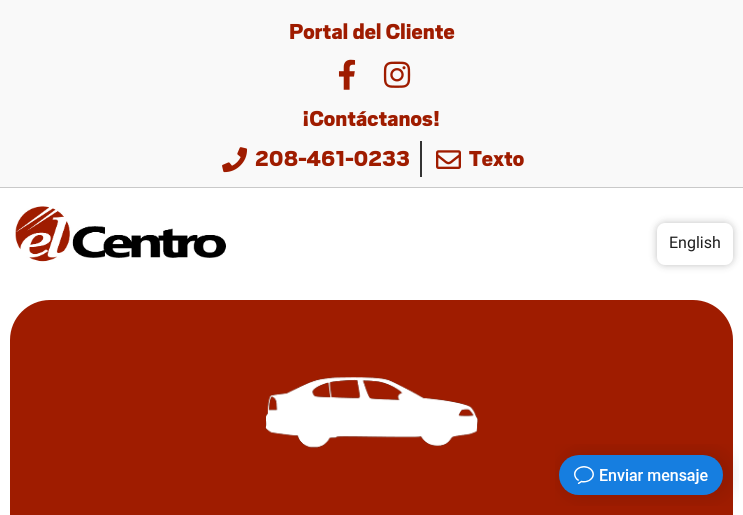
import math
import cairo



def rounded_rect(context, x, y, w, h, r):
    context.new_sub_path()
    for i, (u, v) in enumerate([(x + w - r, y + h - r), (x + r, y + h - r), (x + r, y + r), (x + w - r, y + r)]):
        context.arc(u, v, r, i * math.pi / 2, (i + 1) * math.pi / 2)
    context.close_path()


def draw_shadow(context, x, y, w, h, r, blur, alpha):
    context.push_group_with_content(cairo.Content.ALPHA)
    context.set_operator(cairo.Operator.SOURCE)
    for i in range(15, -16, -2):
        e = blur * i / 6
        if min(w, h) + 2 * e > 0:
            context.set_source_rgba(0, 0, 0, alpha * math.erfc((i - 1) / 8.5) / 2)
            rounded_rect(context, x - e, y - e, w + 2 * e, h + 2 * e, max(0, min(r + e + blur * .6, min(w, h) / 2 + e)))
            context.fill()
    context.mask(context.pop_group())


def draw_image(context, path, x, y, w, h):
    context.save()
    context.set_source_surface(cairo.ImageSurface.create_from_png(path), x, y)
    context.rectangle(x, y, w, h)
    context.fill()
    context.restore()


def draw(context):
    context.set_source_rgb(1, 1, 1)
    context.paint()
    context.set_source_rgb(249 / 255, 249 / 255, 249 / 255)
    context.rectangle(0, 0, 743, 187)
    context.fill()
    context.set_source_rgb(201 / 255, 201 / 255, 201 / 255)
    context.rectangle(0, 187, 743, 1)
    context.fill()
    draw_image(context, "images/1.png", 338, 59, 18, 31)
    draw_image(context, "images/2.png", 383, 61, 28, 27)
    draw_image(context, "images/3.png", 222, 147, 26, 26)
    context.set_source_rgb(51 / 255, 51 / 255, 51 / 255)
    context.rectangle(420, 141, 2, 36)
    context.fill()
    draw_image(context, "images/4.png", 436, 150, 25, 19)
    draw_image(context, "images/5.png", 15, 206, 211, 56)
    context.set_source_rgb(0, 0, 0)
    draw_shadow(context, 657, 223, 76, 42, 8, 4, 0.25)
    context.set_source_rgb(1, 1, 1)
    rounded_rect(context, 657, 223, 76, 42, 8)
    context.fill()
    context.set_source_rgb(159 / 255, 28 / 255, 0)
    rounded_rect(context, 10, 300, 723, 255, 40)
    context.fill()
    draw_image(context, "images/6.png", 265, 377, 213, 71)
    draw_image(context, "images/7.png", 555, 444, 184, 62)
    context.select_font_face("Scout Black")
    context.set_font_size(24)
    context.move_to(289, 39)
    context.show_text("Portal del Cliente")
    context.move_to(302, 126)
    context.show_text("¡Contáctanos!")
    context.move_to(255, 166)
    context.show_text("208-461-0233")
    context.move_to(469, 166)
    context.show_text("Texto")
    context.select_font_face("Roboto")
    context.set_font_size(16)
    context.set_source_rgb(30 / 255, 30 / 255, 30 / 255)
    context.move_to(669, 248)
    context.show_text("English")


surface = cairo.ImageSurface(cairo.Format.RGB24, 743, 515)
context = cairo.Context(surface)
options = cairo.FontOptions()
options.set_hint_metrics(cairo.HintMetrics.OFF)
options.set_hint_style(cairo.HintStyle.NONE)
context.set_font_options(options)
context.set_miter_limit(4)
draw(context)
surface.write_to_png("out.png")
